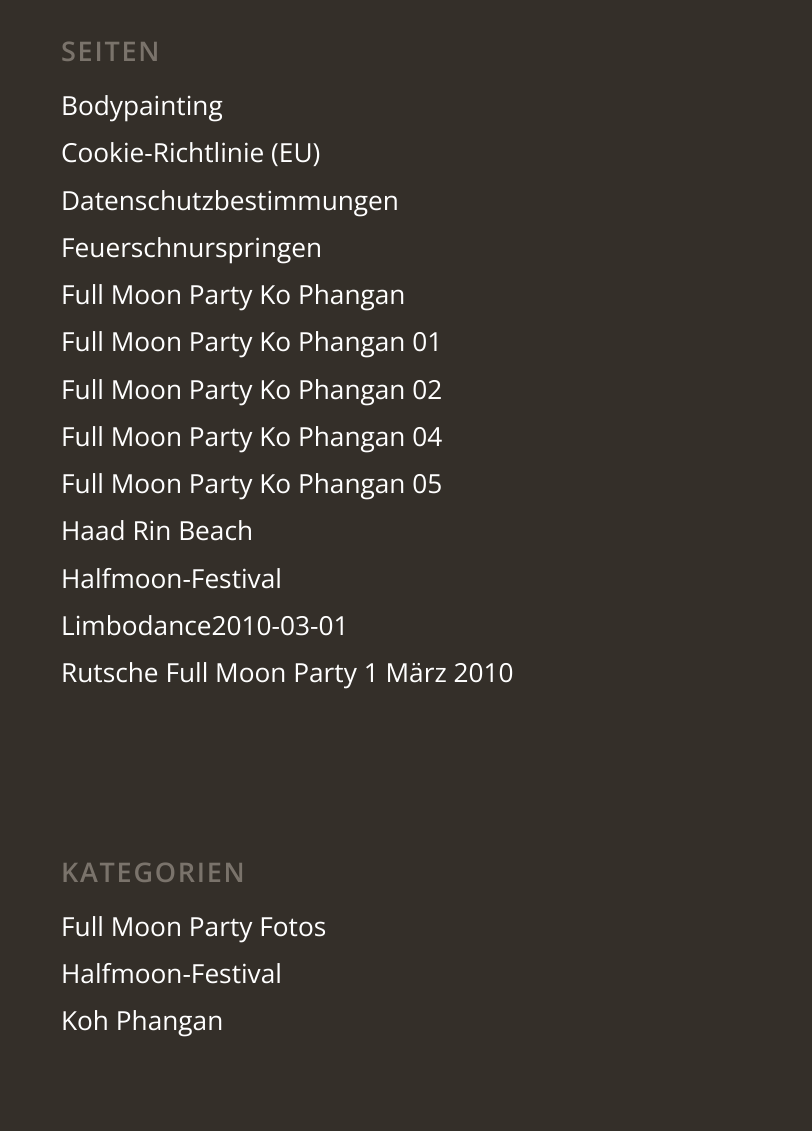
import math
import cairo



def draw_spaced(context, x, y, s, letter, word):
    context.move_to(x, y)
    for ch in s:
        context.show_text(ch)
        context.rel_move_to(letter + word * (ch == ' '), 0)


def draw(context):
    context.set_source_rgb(52 / 255, 47 / 255, 41 / 255)
    context.paint()
    context.select_font_face("Open Sans SemiBold")
    context.set_font_size(27)
    context.set_source_rgb(122 / 255, 115 / 255, 107 / 255)
    draw_spaced(context, 61, 61, "SEITEN", 1.75, 0)
    context.select_font_face("Open Sans")
    context.set_font_size(26.25)
    context.set_source_rgb(1, 1, 1)
    context.move_to(61, 115)
    context.show_text("Bodypainting")
    context.move_to(61, 162)
    context.show_text("Cookie-Richtlinie (EU)")
    context.move_to(61, 210)
    context.show_text("Datenschutzbestimmungen")
    context.move_to(61, 257)
    context.show_text("Feuerschnurspringen")
    context.move_to(61, 304)
    context.show_text("Full Moon Party Ko Phangan")
    context.move_to(61, 351)
    context.show_text("Full Moon Party Ko Phangan 01")
    context.move_to(61, 399)
    context.show_text("Full Moon Party Ko Phangan 02")
    context.move_to(61, 446)
    context.show_text("Full Moon Party Ko Phangan 04")
    context.move_to(61, 493)
    context.show_text("Full Moon Party Ko Phangan 05")
    context.move_to(61, 540)
    context.show_text("Haad Rin Beach")
    context.move_to(61, 588)
    context.show_text("Halfmoon-Festival")
    context.move_to(61, 635)
    context.show_text("Limbodance2010-03-01")
    context.move_to(61, 682)
    context.show_text("Rutsche Full Moon Party 1 März 2010")
    context.select_font_face("Open Sans SemiBold")
    context.set_font_size(27)
    context.set_source_rgb(122 / 255, 115 / 255, 107 / 255)
    draw_spaced(context, 61, 882, "KATEGORIEN", 1.75, 0)
    context.select_font_face("Open Sans")
    context.set_font_size(26.25)
    context.set_source_rgb(1, 1, 1)
    context.move_to(61, 936)
    context.show_text("Full Moon Party Fotos")
    context.move_to(61, 983)
    context.show_text("Halfmoon-Festival")
    context.move_to(61, 1030)
    context.show_text("Koh Phangan")


surface = cairo.ImageSurface(cairo.Format.RGB24, 812, 1131)
context = cairo.Context(surface)
options = cairo.FontOptions()
options.set_hint_metrics(cairo.HintMetrics.OFF)
options.set_hint_style(cairo.HintStyle.NONE)
context.set_font_options(options)
context.set_miter_limit(4)
draw(context)
surface.write_to_png("out.png")
